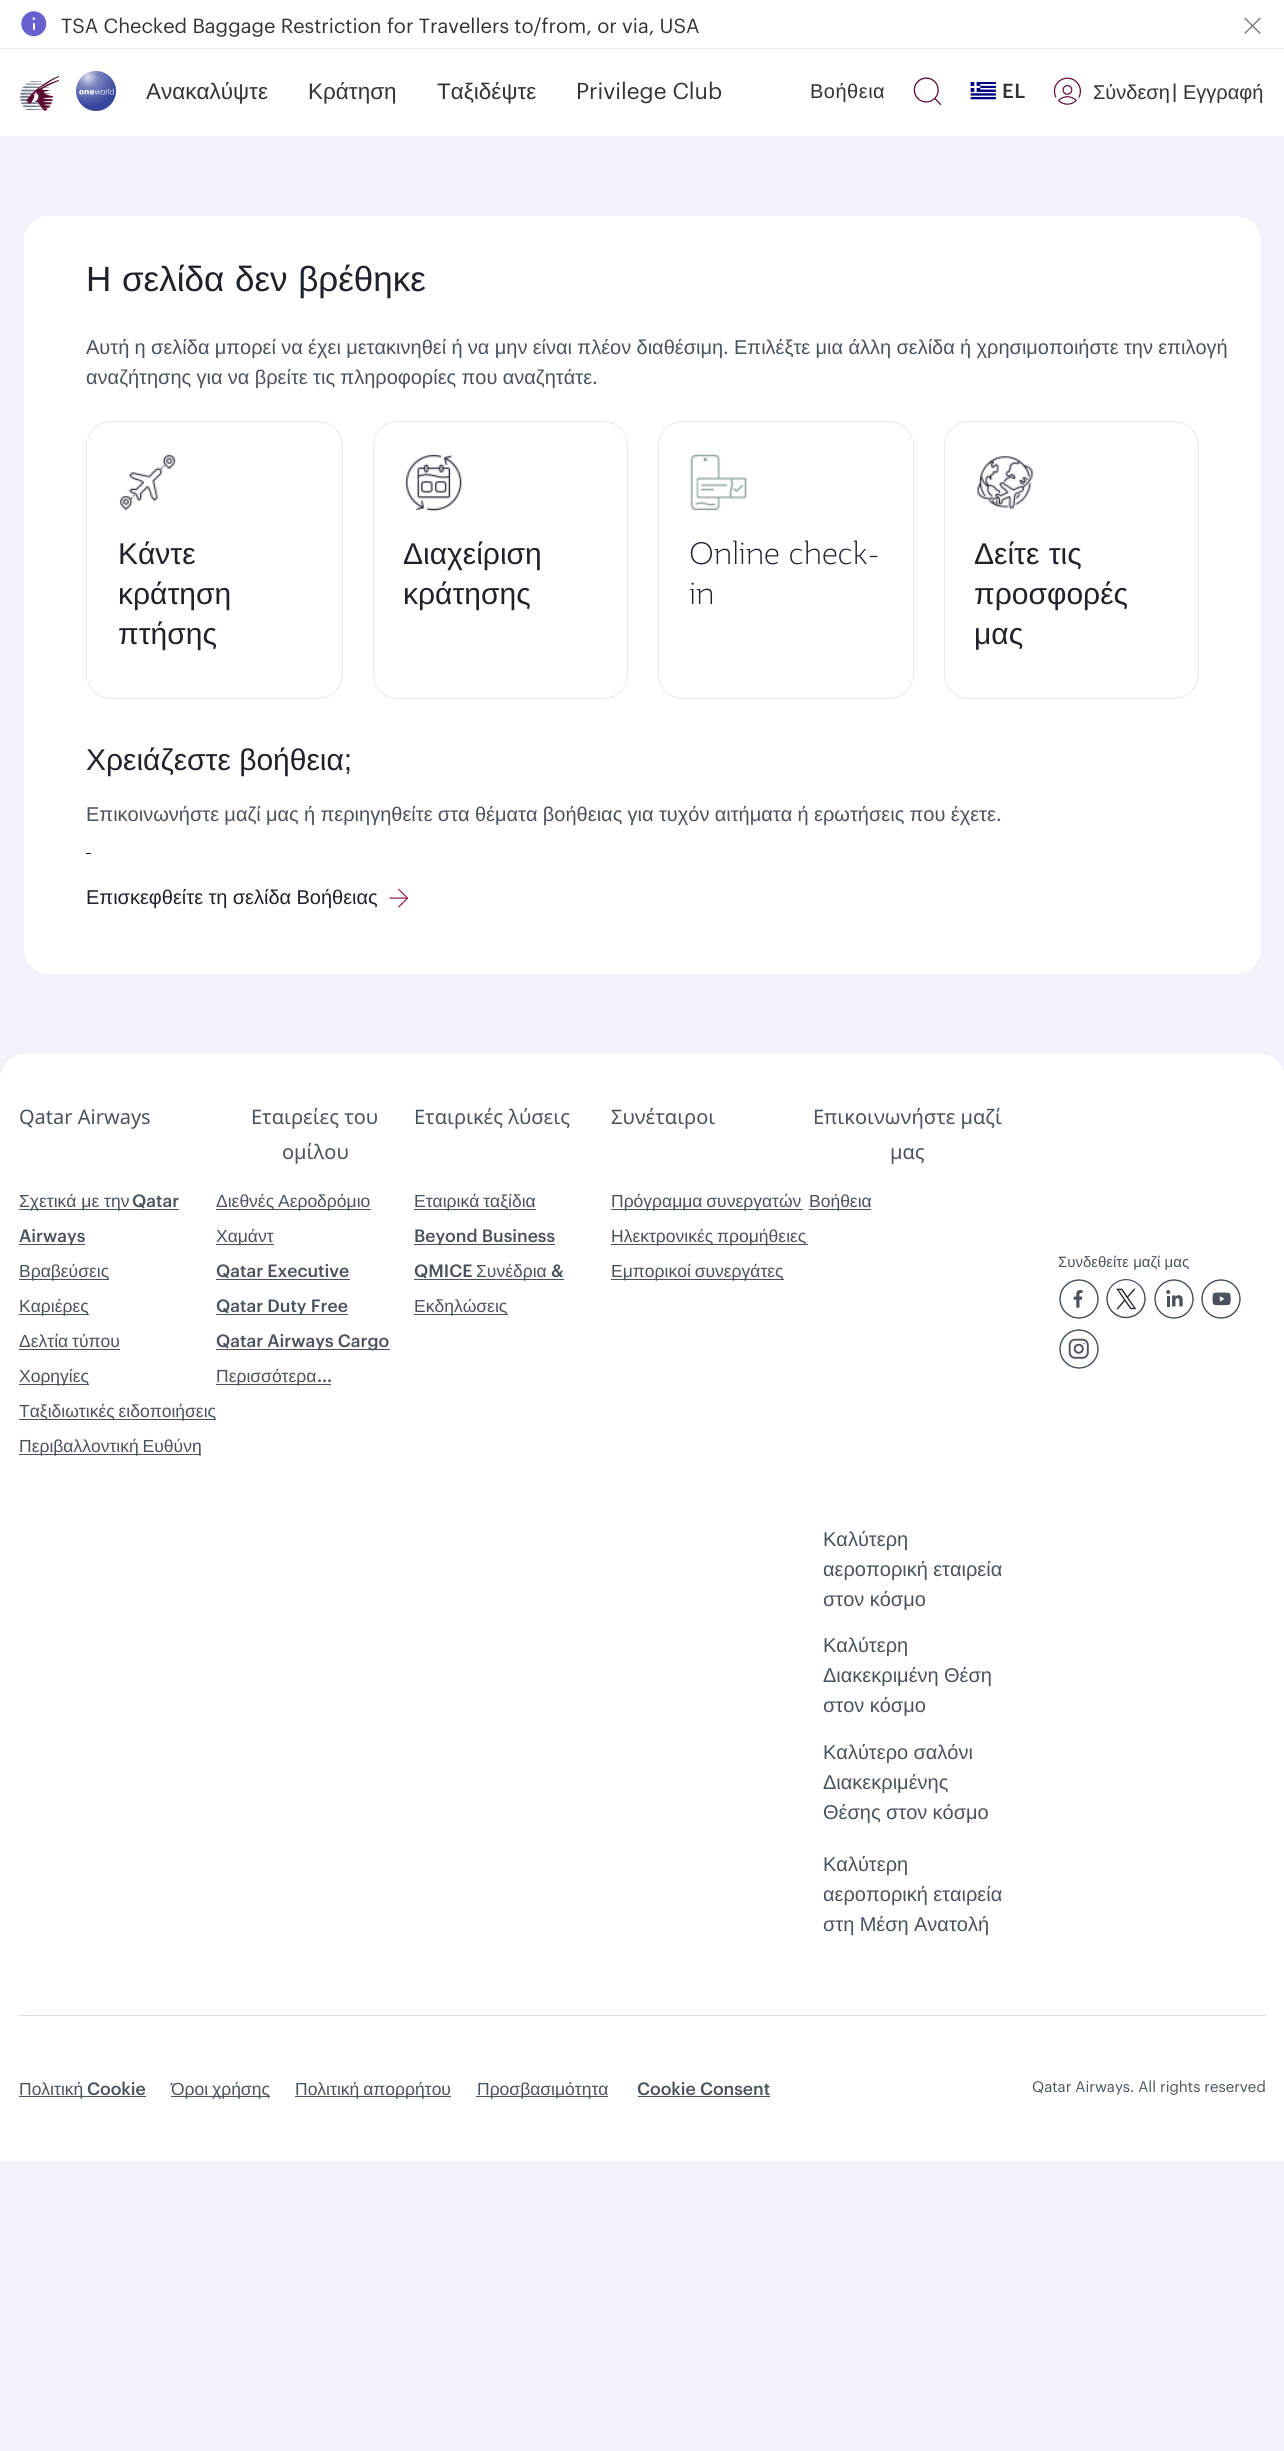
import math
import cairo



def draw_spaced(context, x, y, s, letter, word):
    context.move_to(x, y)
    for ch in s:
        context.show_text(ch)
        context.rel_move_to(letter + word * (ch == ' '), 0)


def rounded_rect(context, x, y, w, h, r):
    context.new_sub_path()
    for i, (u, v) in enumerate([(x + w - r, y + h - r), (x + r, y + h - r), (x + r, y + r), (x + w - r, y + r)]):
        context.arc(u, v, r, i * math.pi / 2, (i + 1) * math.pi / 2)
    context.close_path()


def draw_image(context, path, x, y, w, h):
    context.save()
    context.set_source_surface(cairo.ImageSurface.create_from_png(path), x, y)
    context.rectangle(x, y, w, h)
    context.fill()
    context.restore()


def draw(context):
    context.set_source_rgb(242 / 255, 243 / 255, 250 / 255)
    context.paint()
    context.set_source_rgb(1, 1, 1)
    context.rectangle(0, 0, 1284, 136)
    context.fill()
    context.set_source_rgb(239 / 255, 240 / 255, 241 / 255)
    context.rectangle(0, 48, 1284, 1)
    context.fill()
    draw_image(context, "images/1.png", 21, 11, 26, 26)
    draw_image(context, "images/2.png", 1244, 17, 17, 17)
    draw_image(context, "images/3.png", 19, 75, 40, 36)
    draw_image(context, "images/4.png", 76, 71, 40, 40)
    draw_image(context, "images/5.png", 913, 77, 29, 28)
    draw_image(context, "images/6.png", 970, 82, 26, 18)
    draw_image(context, "images/7.png", 1053, 77, 28, 28)
    context.set_source_rgb(1, 1, 1)
    rounded_rect(context, 24, 216, 1237, 758, 25)
    context.fill()
    rounded_rect(context, 86.5, 421.5, 256, 277, 24.5)
    context.set_source_rgb(233 / 255, 233 / 255, 234 / 255)
    context.set_line_width(1)
    context.stroke()
    draw_image(context, "images/8.png", 119, 454, 57, 57)
    rounded_rect(context, 373.5, 421.5, 254, 277, 24.5)
    context.stroke()
    draw_image(context, "images/9.png", 405, 454, 57, 58)
    rounded_rect(context, 658.5, 421.5, 255, 277, 24.5)
    context.stroke()
    draw_image(context, "images/10.png", 690, 453, 57, 58)
    rounded_rect(context, 944.5, 421.5, 254, 277, 24.5)
    context.stroke()
    draw_image(context, "images/11.png", 976, 456, 58, 53)
    context.set_source_rgb(31 / 255, 33 / 255, 43 / 255)
    context.rectangle(86, 853, 5, 1)
    context.fill()
    draw_image(context, "images/12.png", 389, 888, 20, 20)
    context.set_source_rgb(1, 1, 1)
    context.new_path()
    context.move_to(25, 1054)
    context.line_to(1260, 1054)
    context.curve_to(1274, 1054, 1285, 1065, 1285, 1079)
    context.line_to(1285, 2161)
    context.line_to(0, 2161)
    context.line_to(0, 1079)
    context.curve_to(0, 1065, 11, 1054, 25, 1054)
    context.close_path()
    context.fill()
    context.set_source_rgb(74 / 255, 82 / 255, 93 / 255)
    context.rectangle(19, 1209, 160, 1)
    context.fill()
    context.rectangle(19, 1244, 66, 1)
    context.fill()
    context.rectangle(19, 1279, 90, 1)
    context.fill()
    context.rectangle(19, 1314, 70, 1)
    context.fill()
    context.rectangle(19, 1349, 101, 1)
    context.fill()
    context.rectangle(19, 1384, 70, 1)
    context.fill()
    context.rectangle(19, 1419, 197, 1)
    context.fill()
    context.rectangle(19, 1454, 182, 1)
    context.fill()
    context.rectangle(216, 1209, 155, 1)
    context.fill()
    context.rectangle(216, 1244, 58, 1)
    context.fill()
    context.rectangle(216, 1279, 134, 1)
    context.fill()
    context.rectangle(216, 1314, 132, 1)
    context.fill()
    context.rectangle(216, 1349, 174, 1)
    context.fill()
    context.rectangle(216, 1384, 115, 1)
    context.fill()
    context.rectangle(414, 1209, 122, 1)
    context.fill()
    context.rectangle(414, 1244, 141, 1)
    context.fill()
    context.rectangle(414, 1279, 150, 1)
    context.fill()
    context.rectangle(414, 1314, 94, 1)
    context.fill()
    context.rectangle(611, 1209, 192, 1)
    context.fill()
    context.rectangle(611, 1244, 197, 1)
    context.fill()
    context.rectangle(611, 1279, 173, 1)
    context.fill()
    context.rectangle(809, 1209, 62, 1)
    context.fill()
    draw_image(context, "images/13.png", 1059, 1279, 40, 40)
    draw_image(context, "images/14.png", 1106, 1279, 40, 40)
    draw_image(context, "images/15.png", 1154, 1279, 40, 40)
    draw_image(context, "images/16.png", 1201, 1279, 40, 40)
    draw_image(context, "images/17.png", 1059, 1329, 40, 40)
    context.set_source_rgb(219 / 255, 222 / 255, 232 / 255)
    context.rectangle(19, 2015, 1247, 1)
    context.fill()
    context.set_source_rgb(74 / 255, 82 / 255, 93 / 255)
    context.rectangle(19, 2096, 127, 1)
    context.fill()
    context.rectangle(171, 2096, 99, 1)
    context.fill()
    context.rectangle(295, 2096, 156, 1)
    context.fill()
    context.rectangle(476, 2096, 132, 1)
    context.fill()
    context.rectangle(638, 2096, 132, 1)
    context.fill()
    context.select_font_face("Graphik")
    context.set_font_size(20)
    context.set_source_rgb(51 / 255, 51 / 255, 51 / 255)
    context.move_to(61, 33)
    context.show_text("TSA Checked Baggage Restriction for Travellers to/from, or via, USA")
    context.select_font_face("Liberation Sans")
    context.set_font_size(22.5)
    context.move_to(146, 99)
    context.show_text("Ανακαλύψτε")
    context.move_to(308, 99)
    context.show_text("Κράτηση")
    context.move_to(437, 99)
    context.show_text("Ταξιδέψτε")
    context.select_font_face("Graphik")
    context.move_to(576, 99)
    context.show_text("Privilege Club")
    context.select_font_face("Liberation Sans")
    context.set_font_size(20)
    draw_spaced(context, 810, 98, "Βοήθεια", 0.5, 0)
    context.select_font_face("Graphik Medium")
    draw_spaced(context, 1002, 98, "EL", 0.5, 0)
    context.select_font_face("Liberation Sans")
    context.move_to(1093, 99)
    context.show_text("Σύνδεση")
    context.select_font_face("Graphik Medium")
    context.move_to(1172, 99)
    context.show_text("|")
    context.select_font_face("Liberation Sans")
    context.move_to(1183, 99)
    context.show_text("Εγγραφή")
    context.set_font_size(35)
    context.set_source_rgb(31 / 255, 33 / 255, 43 / 255)
    draw_spaced(context, 86, 291, "Η σελίδα δεν βρέθηκε", 0, 1)
    context.set_font_size(20)
    context.set_source_rgb(74 / 255, 82 / 255, 93 / 255)
    draw_spaced(context, 86, 354, "Αυτή η σελίδα μπορεί να έχει μετακινηθεί ή να μην είναι πλέον διαθέσιμη", 0, -0.25)
    context.select_font_face("Graphik")
    context.move_to(723, 354)
    context.show_text(".")
    context.select_font_face("Liberation Sans")
    draw_spaced(context, 734, 354, "Επιλέξτε μια άλλη σελίδα ή χρησιμοποιήστε την επιλογή", 0, -0.25)
    draw_spaced(context, 86, 384, "αναζήτησης για να βρείτε τις πληροφορίες που αναζητάτε", 0, -0.25)
    context.select_font_face("Graphik")
    context.move_to(592, 384)
    context.show_text(".")
    context.select_font_face("Liberation Sans")
    context.set_font_size(30)
    context.set_source_rgb(31 / 255, 33 / 255, 43 / 255)
    context.move_to(118, 564)
    context.show_text("Κάντε")
    context.move_to(118, 604)
    context.show_text("κράτηση")
    context.move_to(118, 644)
    context.show_text("πτήσης")
    context.move_to(403, 564)
    context.show_text("Διαχείριση")
    context.move_to(403, 604)
    context.show_text("κράτησης")
    context.select_font_face("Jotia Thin")
    context.move_to(689, 564)
    context.show_text("Online check-")
    context.move_to(689, 604)
    context.show_text("in")
    context.select_font_face("Liberation Sans")
    draw_spaced(context, 974, 564, "Δείτε τις", 0, 1)
    context.move_to(974, 604)
    context.show_text("προσφορές")
    context.move_to(974, 644)
    context.show_text("μας")
    context.move_to(86, 770)
    context.show_text("Χρειάζεστε βοήθεια;")
    context.set_font_size(20)
    context.set_source_rgb(74 / 255, 82 / 255, 93 / 255)
    draw_spaced(context, 86, 821, "Επικοινωνήστε μαζί μας ή περιηγηθείτε στα θέματα βοήθειας για τυχόν αιτήματα ή ερωτήσεις που έχετε", 0, -0.25)
    context.select_font_face("Graphik")
    context.move_to(996, 821)
    context.show_text(".")
    context.select_font_face("Liberation Sans")
    context.set_source_rgb(31 / 255, 33 / 255, 43 / 255)
    draw_spaced(context, 86, 904, "Επισκεφθείτε τη σελίδα Βοήθειας", 0, -0.25)
    context.select_font_face("Noto Sans")
    context.set_source_rgb(74 / 255, 82 / 255, 93 / 255)
    context.move_to(19, 1124)
    context.show_text("Qatar Airways")
    context.move_to(251, 1124)
    context.show_text("Εταιρείες του")
    context.move_to(282, 1159)
    context.show_text("ομίλου")
    context.move_to(414, 1124)
    context.show_text("Εταιρικές λύσεις")
    context.move_to(611, 1124)
    context.show_text("Συνέταιροι")
    context.move_to(813, 1124)
    context.show_text("Επικοινωνήστε μαζί")
    context.move_to(890, 1159)
    context.show_text("μας")
    context.select_font_face("Liberation Sans")
    context.set_font_size(17.5)
    context.move_to(19, 1207)
    context.show_text("Σχετικά με την")
    context.select_font_face("Graphik Medium")
    context.move_to(132, 1207)
    context.show_text("Qatar")
    context.move_to(19, 1242)
    context.show_text("Airways")
    context.select_font_face("Liberation Sans")
    context.move_to(19, 1277)
    context.show_text("Βραβεύσεις")
    context.move_to(19, 1312)
    context.show_text("Καριέρες")
    draw_spaced(context, 19, 1347, "Δελτία τύπου", 0, -1)
    context.move_to(19, 1382)
    context.show_text("Χορηγίες")
    draw_spaced(context, 19, 1417, "Ταξιδιωτικές ειδοποιήσεις", 0, -1)
    draw_spaced(context, 19, 1452, "Περιβαλλοντική Ευθύνη", 0, -1)
    draw_spaced(context, 216, 1207, "Διεθνές Αεροδρόμιο", 0, -1)
    context.move_to(216, 1242)
    context.show_text("Χαμάντ")
    context.select_font_face("Graphik Medium")
    context.move_to(216, 1277)
    context.show_text("Qatar Executive")
    context.move_to(216, 1312)
    context.show_text("Qatar Duty Free")
    context.move_to(216, 1347)
    context.show_text("Qatar Airways Cargo")
    context.select_font_face("Liberation Sans")
    context.move_to(216, 1382)
    context.show_text("Περισσότερα")
    context.select_font_face("Graphik Medium")
    context.move_to(317, 1382)
    context.show_text("...")
    context.select_font_face("Liberation Sans")
    draw_spaced(context, 414, 1207, "Εταιρικά ταξίδια", 0, -1)
    context.select_font_face("Graphik Medium")
    context.move_to(414, 1242)
    context.show_text("Beyond Business")
    context.move_to(414, 1277)
    context.show_text("QMICE")
    context.select_font_face("Liberation Sans")
    context.move_to(476, 1277)
    context.show_text("Συνέδρια")
    context.select_font_face("Graphik Medium")
    context.move_to(551, 1277)
    context.show_text("&")
    context.select_font_face("Liberation Sans")
    context.move_to(414, 1312)
    context.show_text("Εκδηλώσεις")
    draw_spaced(context, 611, 1207, "Πρόγραμμα συνεργατών", 0, -1)
    draw_spaced(context, 611, 1242, "Ηλεκτρονικές προμήθειες", 0, -1)
    draw_spaced(context, 611, 1277, "Εμπορικοί συνεργάτες", 0, -1)
    context.move_to(809, 1207)
    context.show_text("Βοήθεια")
    context.set_font_size(15)
    context.move_to(1058, 1267)
    context.show_text("Συνδεθείτε μαζί μας")
    context.set_font_size(20)
    context.move_to(823, 1546)
    context.show_text("Καλύτερη")
    draw_spaced(context, 823, 1576, "αεροπορική εταιρεία", 0, -0.25)
    draw_spaced(context, 823, 1606, "στον κόσμο", 0, -0.25)
    context.move_to(823, 1652)
    context.show_text("Καλύτερη")
    draw_spaced(context, 823, 1682, "Διακεκριμένη Θέση", 0, -0.25)
    draw_spaced(context, 823, 1712, "στον κόσμο", 0, -0.25)
    draw_spaced(context, 823, 1759, "Καλύτερο σαλόνι", 0, -0.25)
    context.move_to(823, 1789)
    context.show_text("Διακεκριμένης")
    draw_spaced(context, 823, 1819, "Θέσης στον κόσμο", 0, -0.25)
    context.move_to(823, 1871)
    context.show_text("Καλύτερη")
    draw_spaced(context, 823, 1901, "αεροπορική εταιρεία", 0, -0.25)
    draw_spaced(context, 823, 1931, "στη Μέση Ανατολή", 0, -0.25)
    context.set_font_size(17.5)
    context.move_to(19, 2095)
    context.show_text("Πολιτική")
    context.select_font_face("Graphik Medium")
    context.move_to(87, 2095)
    context.show_text("Cookie")
    context.select_font_face("Liberation Sans")
    draw_spaced(context, 171, 2095, "Όροι χρήσης", 0, -1)
    draw_spaced(context, 295, 2095, "Πολιτική απορρήτου", 0, -1)
    context.move_to(477, 2095)
    context.show_text("Προσβασιμότητα")
    context.select_font_face("Graphik Medium")
    context.move_to(637, 2095)
    context.show_text("Cookie Consent")
    context.select_font_face("Graphik")
    context.set_font_size(15)
    context.move_to(1032, 2092)
    context.show_text("Qatar Airways. All rights reserved")


surface = cairo.ImageSurface(cairo.Format.RGB24, 1284, 2451)
context = cairo.Context(surface)
options = cairo.FontOptions()
options.set_hint_metrics(cairo.HintMetrics.OFF)
options.set_hint_style(cairo.HintStyle.NONE)
context.set_font_options(options)
context.set_miter_limit(4)
draw(context)
surface.write_to_png("out.png")
